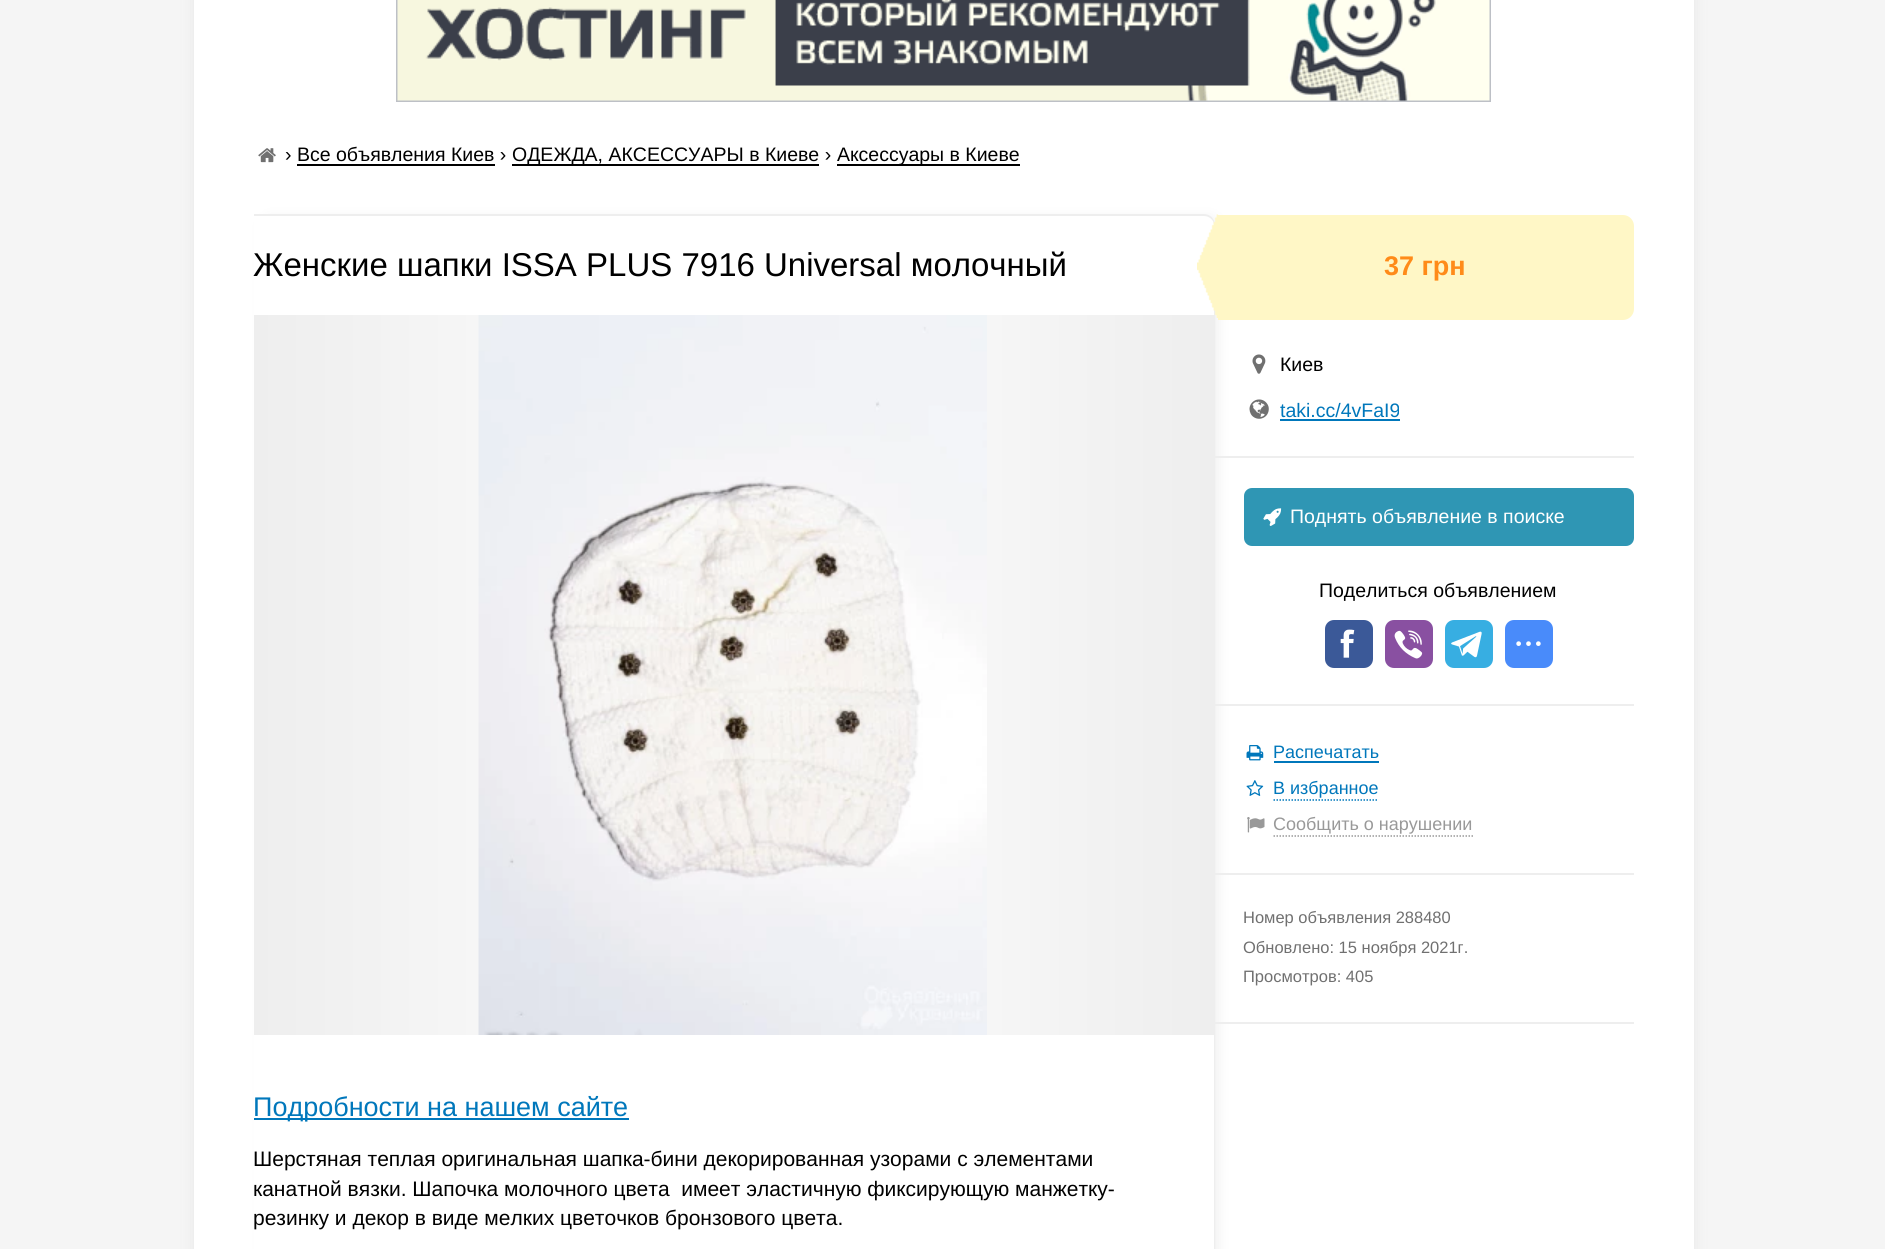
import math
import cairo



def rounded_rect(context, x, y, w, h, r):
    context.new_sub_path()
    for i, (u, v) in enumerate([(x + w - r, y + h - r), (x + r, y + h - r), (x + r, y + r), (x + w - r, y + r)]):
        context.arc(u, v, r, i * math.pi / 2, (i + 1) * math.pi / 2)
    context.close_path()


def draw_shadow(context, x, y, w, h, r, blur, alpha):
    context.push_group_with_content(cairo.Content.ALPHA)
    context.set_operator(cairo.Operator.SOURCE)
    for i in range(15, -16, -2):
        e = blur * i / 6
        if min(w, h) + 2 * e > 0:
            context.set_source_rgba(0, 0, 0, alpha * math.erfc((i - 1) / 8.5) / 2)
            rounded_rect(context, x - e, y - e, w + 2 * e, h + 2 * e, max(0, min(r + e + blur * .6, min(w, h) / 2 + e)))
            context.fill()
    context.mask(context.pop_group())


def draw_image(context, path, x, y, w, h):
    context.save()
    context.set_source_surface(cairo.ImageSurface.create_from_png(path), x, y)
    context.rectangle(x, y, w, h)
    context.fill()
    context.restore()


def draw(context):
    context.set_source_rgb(245 / 255, 245 / 255, 245 / 255)
    context.paint()
    context.set_source_rgb(232 / 255, 232 / 255, 232 / 255)
    draw_shadow(context, 194, -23, 1500, 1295, 0, 7.5, 1)
    context.set_source_rgb(1, 1, 1)
    context.rectangle(194, 0, 1500, 1249)
    context.fill()
    context.rectangle(397, -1, 1093, 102)
    context.set_source_rgb(189 / 255, 192 / 255, 198 / 255)
    context.stroke()
    draw_image(context, "images/1.png", 397, 0, 1093, 101)
    draw_image(context, "images/2.png", 258, 148, 18, 15)
    context.set_source_rgb(0, 0, 0)
    context.rectangle(512, 164, 307, 2)
    context.fill()
    context.rectangle(837, 164, 183, 2)
    context.fill()
    context.rectangle(297, 164, 198, 2)
    context.fill()
    context.save()
    context.set_fill_rule(cairo.FillRule.EVEN_ODD)
    context.new_path()
    context.move_to(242, 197)
    context.line_to(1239, 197)
    context.line_to(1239, 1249)
    context.line_to(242, 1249)
    context.close_path()
    context.move_to(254, 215)
    context.line_to(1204, 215)
    context.curve_to(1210, 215, 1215, 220, 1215, 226)
    context.line_to(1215, 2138)
    context.line_to(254, 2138)
    context.close_path()
    context.clip()
    context.set_source_rgb(232 / 255, 232 / 255, 232 / 255)
    draw_shadow(context, 266, 221, 949, 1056, 5, 7.5, 1)
    context.restore()
    context.set_source_rgb(238 / 255, 238 / 255, 238 / 255)
    context.set_fill_rule(cairo.FillRule.EVEN_ODD)
    context.new_path()
    context.move_to(254, 214)
    context.line_to(1204, 214)
    context.curve_to(1210, 214, 1215, 219, 1215, 225)
    context.line_to(1215, 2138)
    context.line_to(254, 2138)
    context.close_path()
    context.move_to(254, 216)
    context.line_to(1204, 216)
    context.curve_to(1209, 216, 1214, 220, 1214, 225)
    context.line_to(1214, 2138)
    context.line_to(254, 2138)
    context.close_path()
    context.fill()
    gradient = cairo.LinearGradient(254, 675, 1214, 675)
    gradient.add_color_stop_rgba(0, 238 / 255, 238 / 255, 238 / 255, 1)
    gradient.add_color_stop_rgba(0.5, 1, 1, 1, 1)
    gradient.add_color_stop_rgba(1, 238 / 255, 238 / 255, 238 / 255, 1)
    context.set_source(gradient)
    context.rectangle(254, 315, 960, 720)
    context.fill()
    draw_image(context, "images/3.png", 478, 315, 509, 720)
    context.set_source_rgb(0, 119 / 255, 187 / 255)
    context.rectangle(254, 1118, 375, 2)
    context.fill()
    context.set_source_rgb(1, 247 / 255, 198 / 255)
    context.new_path()
    context.move_to(1218, 215)
    context.line_to(1623, 215)
    context.curve_to(1629, 215, 1634, 220, 1634, 226)
    context.line_to(1634, 309)
    context.curve_to(1634, 315, 1629, 320, 1623, 320)
    context.line_to(1218, 320)
    context.close_path()
    context.fill()
    draw_image(context, "images/4.png", 1197, 214, 21, 104)
    draw_image(context, "images/5.png", 1252, 354, 14, 20)
    draw_image(context, "images/6.png", 1249, 399, 20, 20)
    context.set_source_rgb(0, 119 / 255, 187 / 255)
    context.rectangle(1280, 419, 120, 2)
    context.fill()
    context.set_source_rgb(238 / 255, 238 / 255, 238 / 255)
    context.rectangle(1214, 456, 420, 2)
    context.fill()
    context.set_source_rgb(47 / 255, 150 / 255, 180 / 255)
    rounded_rect(context, 1244, 488, 390, 58, 8)
    context.fill()
    draw_image(context, "images/7.png", 1263, 508, 19, 18)
    context.set_source_rgb(59 / 255, 89 / 255, 152 / 255)
    rounded_rect(context, 1325, 620, 48, 48, 9)
    context.fill()
    draw_image(context, "images/8.png", 1340, 629, 15, 29)
    context.set_source_rgb(137 / 255, 80 / 255, 161 / 255)
    rounded_rect(context, 1385, 620, 48, 48, 9)
    context.fill()
    draw_image(context, "images/9.png", 1394, 630, 29, 29)
    context.set_source_rgb(55 / 255, 174 / 255, 226 / 255)
    rounded_rect(context, 1445, 620, 48, 48, 9)
    context.fill()
    draw_image(context, "images/10.png", 1451, 631, 31, 27)
    context.set_source_rgb(73 / 255, 139 / 255, 250 / 255)
    rounded_rect(context, 1505, 620, 48, 48, 9)
    context.fill()
    draw_image(context, "images/11.png", 1516, 641, 25, 5)
    context.set_source_rgb(238 / 255, 238 / 255, 238 / 255)
    context.rectangle(1214, 704, 420, 2)
    context.fill()
    draw_image(context, "images/12.png", 1246, 745, 18, 16)
    context.set_source_rgb(0, 119 / 255, 187 / 255)
    context.rectangle(1274, 761, 105, 2)
    context.fill()
    draw_image(context, "images/13.png", 1246, 780, 18, 16)
    context.new_path()
    context.move_to(1273.5, 800)
    context.line_to(1378.5, 800)
    context.set_line_width(1.5)
    context.set_dash([1.5, 1.5])
    context.stroke()
    draw_image(context, "images/14.png", 1247, 817, 18, 16)
    context.new_path()
    context.move_to(1273.5, 836)
    context.line_to(1473, 836)
    context.set_source_rgb(153 / 255, 153 / 255, 153 / 255)
    context.stroke()
    context.set_source_rgb(238 / 255, 238 / 255, 238 / 255)
    context.rectangle(1214, 873, 420, 2)
    context.fill()
    context.rectangle(1214, 1022, 420, 2)
    context.fill()
    context.select_font_face("Liberation Sans")
    context.set_font_size(19.5)
    context.set_source_rgb(0, 0, 0)
    context.move_to(285, 161)
    context.show_text("› Все объявления Киев ›")
    context.move_to(512, 161)
    context.show_text("ОДЕЖДА, АКСЕССУАРЫ в Киеве ›")
    context.move_to(837, 161)
    context.show_text("Аксессуары в Киеве")
    context.set_font_size(33)
    context.move_to(253, 276)
    context.show_text("Женские шапки ISSA PLUS 7916 Universal молочный")
    context.set_font_size(27)
    context.set_source_rgb(0, 119 / 255, 187 / 255)
    context.move_to(253, 1116)
    context.show_text("Подробности на нашем сайте")
    context.set_font_size(21)
    context.set_source_rgb(0, 0, 0)
    context.move_to(253, 1166)
    context.show_text("Шерстяная теплая оригинальная шапка-бини декорированная узорами с элементами")
    context.move_to(253, 1196)
    context.show_text("канатной вязки. Шапочка молочного цвета  имеет эластичную фиксирующую манжетку-")
    context.move_to(253, 1225)
    context.show_text("резинку и декор в виде мелких цветочков бронзового цвета.")
    context.select_font_face("Liberation Sans", cairo.FontSlant.NORMAL, cairo.FontWeight.BOLD)
    context.set_font_size(27)
    context.set_source_rgb(1, 139 / 255, 25 / 255)
    context.move_to(1384, 275)
    context.show_text("37 грн")
    context.select_font_face("Liberation Sans")
    context.set_font_size(19.5)
    context.set_source_rgb(0, 0, 0)
    context.move_to(1280, 371)
    context.show_text("Киев")
    context.set_source_rgb(0, 119 / 255, 187 / 255)
    context.move_to(1280, 417)
    context.show_text("taki.cc/4vFaI9")
    context.set_source_rgb(1, 1, 1)
    context.move_to(1290, 523)
    context.show_text("Поднять объявление в поиске")
    context.set_source_rgb(0, 0, 0)
    context.move_to(1319, 597)
    context.show_text("Поделиться объявлением")
    context.set_font_size(18)
    context.set_source_rgb(0, 119 / 255, 187 / 255)
    context.move_to(1273, 758)
    context.show_text("Распечатать")
    context.move_to(1273, 794)
    context.show_text("В избранное")
    context.set_source_rgb(153 / 255, 153 / 255, 153 / 255)
    context.move_to(1273, 830)
    context.show_text("Сообщить о нарушении")
    context.set_font_size(16.5)
    context.set_source_rgb(112 / 255, 112 / 255, 112 / 255)
    context.move_to(1243, 923)
    context.show_text("Номер объявления 288480")
    context.move_to(1243, 953)
    context.show_text("Обновлено: 15 ноября 2021г.")
    context.move_to(1243, 982)
    context.show_text("Просмотров: 405")


surface = cairo.ImageSurface(cairo.Format.RGB24, 1885, 1249)
context = cairo.Context(surface)
options = cairo.FontOptions()
options.set_hint_metrics(cairo.HintMetrics.OFF)
options.set_hint_style(cairo.HintStyle.NONE)
context.set_font_options(options)
context.set_miter_limit(4)
draw(context)
surface.write_to_png("out.png")
